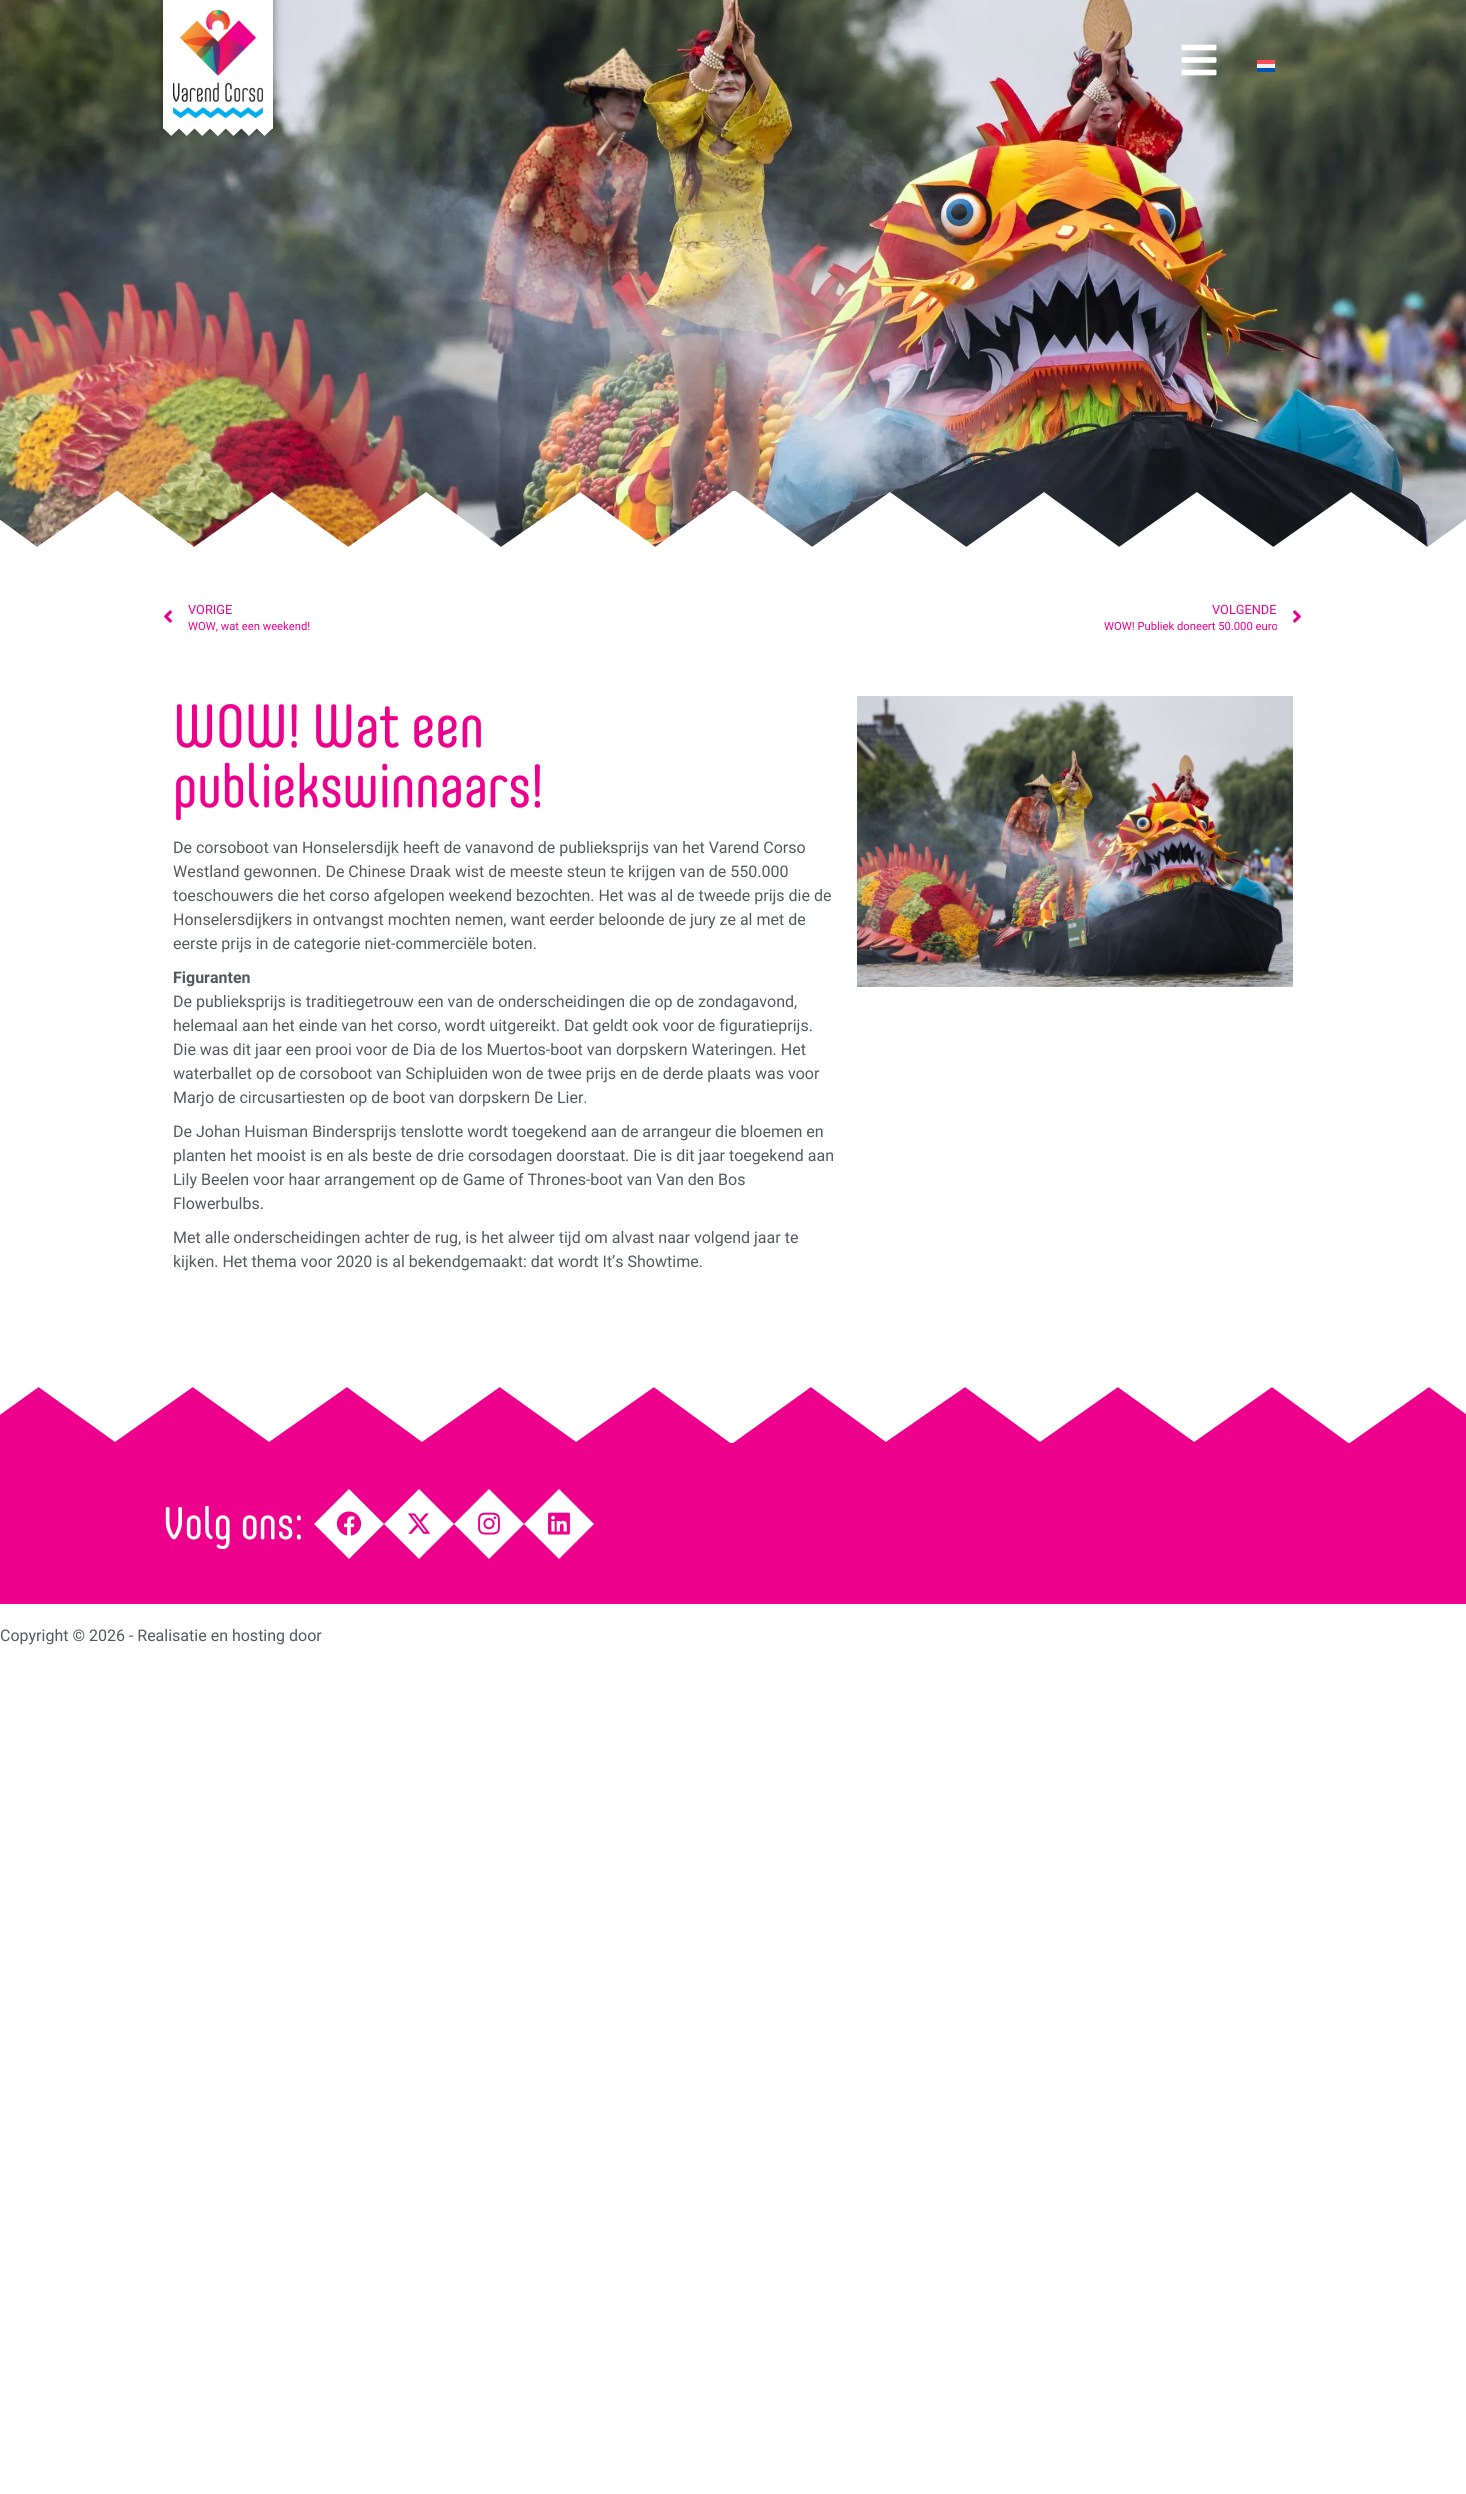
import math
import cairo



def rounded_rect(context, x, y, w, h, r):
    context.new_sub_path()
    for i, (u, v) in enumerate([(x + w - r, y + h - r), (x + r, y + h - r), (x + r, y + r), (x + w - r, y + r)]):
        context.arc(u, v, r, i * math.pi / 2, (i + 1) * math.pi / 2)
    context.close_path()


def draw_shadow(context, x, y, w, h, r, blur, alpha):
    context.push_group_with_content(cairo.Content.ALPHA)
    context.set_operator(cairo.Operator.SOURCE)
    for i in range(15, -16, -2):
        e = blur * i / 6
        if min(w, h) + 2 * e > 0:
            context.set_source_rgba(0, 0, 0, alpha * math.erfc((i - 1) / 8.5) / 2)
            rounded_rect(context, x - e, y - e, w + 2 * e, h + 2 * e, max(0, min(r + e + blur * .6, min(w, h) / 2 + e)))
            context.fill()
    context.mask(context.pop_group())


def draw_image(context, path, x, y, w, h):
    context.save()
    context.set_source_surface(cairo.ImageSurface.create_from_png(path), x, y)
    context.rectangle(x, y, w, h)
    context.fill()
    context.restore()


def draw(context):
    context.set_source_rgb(1, 1, 1)
    context.paint()
    draw_image(context, "images/1.png", 0, 0, 1466, 547)
    draw_image(context, "images/2.png", 0, 491, 1466, 59)
    context.set_source_rgb(0, 0, 0)
    draw_shadow(context, 163, 0, 110, 128, 0, 5, 0.5)
    context.set_source_rgb(1, 1, 1)
    context.rectangle(163, 0, 110, 128)
    context.fill()
    draw_image(context, "images/3.png", 173, 10, 90, 108)
    draw_image(context, "images/4.png", 163, 128, 110, 8)
    draw_image(context, "images/5.png", 1181, 44, 36, 32)
    context.set_source_rgb(1, 75 / 255, 85 / 255)
    context.rectangle(1257, 60, 18, 4)
    context.fill()
    context.set_source_rgb(240 / 255, 240 / 255, 240 / 255)
    context.rectangle(1257, 64, 18, 4)
    context.fill()
    context.set_source_rgb(0, 82 / 255, 180 / 255)
    context.rectangle(1257, 68, 18, 4)
    context.fill()
    draw_image(context, "images/6.png", 164, 610, 8, 13)
    draw_image(context, "images/7.png", 1293, 610, 8, 13)
    draw_image(context, "images/8.png", 857, 696, 436, 291)
    context.set_source_rgb(236 / 255, 0, 140 / 255)
    context.rectangle(0, 1387, 1466, 217)
    context.fill()
    draw_image(context, "images/9.png", 0, 1384, 1466, 59)
    context.set_source_rgb(1, 1, 1)
    context.new_path()
    context.move_to(349, 1489)
    context.line_to(384, 1524)
    context.line_to(349, 1559)
    context.line_to(314, 1524)
    context.close_path()
    context.fill()
    draw_image(context, "images/10.png", 336, 1511, 26, 25)
    context.new_path()
    context.move_to(419, 1489)
    context.line_to(454, 1524)
    context.line_to(419, 1559)
    context.line_to(384, 1524)
    context.close_path()
    context.fill()
    draw_image(context, "images/11.png", 407, 1513, 24, 21)
    context.new_path()
    context.move_to(489, 1489)
    context.line_to(524, 1524)
    context.line_to(489, 1559)
    context.line_to(454, 1524)
    context.close_path()
    context.fill()
    draw_image(context, "images/12.png", 478, 1512, 22, 23)
    context.new_path()
    context.move_to(559, 1489)
    context.line_to(594, 1524)
    context.line_to(559, 1559)
    context.line_to(524, 1524)
    context.close_path()
    context.fill()
    draw_image(context, "images/13.png", 548, 1512, 22, 23)
    context.select_font_face("Roboto")
    context.set_font_size(12.75)
    context.set_source_rgb(236 / 255, 0, 140 / 255)
    context.move_to(188, 614)
    context.show_text("VORIGE")
    context.set_font_size(11.25)
    context.move_to(188, 630)
    context.show_text("WOW, wat een weekend!")
    context.set_font_size(12.75)
    context.move_to(1212, 614)
    context.show_text("VOLGENDE")
    context.set_font_size(11.25)
    context.move_to(1104, 630)
    context.show_text("WOW! Publiek doneert 50.000 euro")
    context.select_font_face("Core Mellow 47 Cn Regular")
    context.set_font_size(60)
    context.move_to(173, 747)
    context.show_text("WOW! Wat een")
    context.move_to(173, 807)
    context.show_text("publiekswinnaars!")
    context.select_font_face("Roboto")
    context.set_font_size(16)
    context.set_source_rgb(84 / 255, 89 / 255, 95 / 255)
    context.move_to(173, 853)
    context.show_text("De corsoboot van Honselersdijk heeft de vanavond de publieksprijs van het Varend Corso")
    context.move_to(173, 877)
    context.show_text("Westland gewonnen. De Chinese Draak wist de meeste steun te krijgen van de 550.000")
    context.move_to(173, 901)
    context.show_text("toeschouwers die het corso afgelopen weekend bezochten. Het was al de tweede prijs die de")
    context.move_to(173, 925)
    context.show_text("Honselersdijkers in ontvangst mochten nemen, want eerder beloonde de jury ze al met de")
    context.move_to(173, 949)
    context.show_text("eerste prijs in de categorie niet-commerciële boten.")
    context.select_font_face("Roboto", cairo.FontSlant.NORMAL, cairo.FontWeight.BOLD)
    context.move_to(173, 983)
    context.show_text("Figuranten")
    context.select_font_face("Roboto")
    context.move_to(173, 1007)
    context.show_text("De publieksprijs is traditiegetrouw een van de onderscheidingen die op de zondagavond,")
    context.move_to(173, 1031)
    context.show_text("helemaal aan het einde van het corso, wordt uitgereikt. Dat geldt ook voor de figuratieprijs.")
    context.move_to(173, 1055)
    context.show_text("Die was dit jaar een prooi voor de Dia de los Muertos-boot van dorpskern Wateringen. Het")
    context.move_to(173, 1079)
    context.show_text("waterballet op de corsoboot van Schipluiden won de twee prijs en de derde plaats was voor")
    context.move_to(173, 1103)
    context.show_text("Marjo de circusartiesten op de boot van dorpskern De Lier.")
    context.move_to(173, 1137)
    context.show_text("De Johan Huisman Bindersprijs tenslotte wordt toegekend aan de arrangeur die bloemen en")
    context.move_to(173, 1161)
    context.show_text("planten het mooist is en als beste de drie corsodagen doorstaat. Die is dit jaar toegekend aan")
    context.move_to(173, 1185)
    context.show_text("Lily Beelen voor haar arrangement op de Game of Thrones-boot van Van den Bos")
    context.move_to(173, 1209)
    context.show_text("Flowerbulbs.")
    context.move_to(173, 1243)
    context.show_text("Met alle onderscheidingen achter de rug, is het alweer tijd om alvast naar volgend jaar te")
    context.move_to(173, 1267)
    context.show_text("kijken. Het thema voor 2020 is al bekendgemaakt: dat wordt It’s Showtime.")
    context.select_font_face("Core Mellow 47 Cn Regular")
    context.set_font_size(45)
    context.set_source_rgb(1, 1, 1)
    context.move_to(163, 1539)
    context.show_text("Volg ons:")
    context.select_font_face("Roboto")
    context.set_font_size(16)
    context.set_source_rgb(84 / 255, 89 / 255, 95 / 255)
    context.move_to(0, 1641)
    context.show_text("Copyright © 2026 - Realisatie en hosting door")


surface = cairo.ImageSurface(cairo.Format.RGB24, 1466, 2494)
context = cairo.Context(surface)
options = cairo.FontOptions()
options.set_hint_metrics(cairo.HintMetrics.OFF)
options.set_hint_style(cairo.HintStyle.NONE)
context.set_font_options(options)
context.set_miter_limit(4)
draw(context)
surface.write_to_png("out.png")
